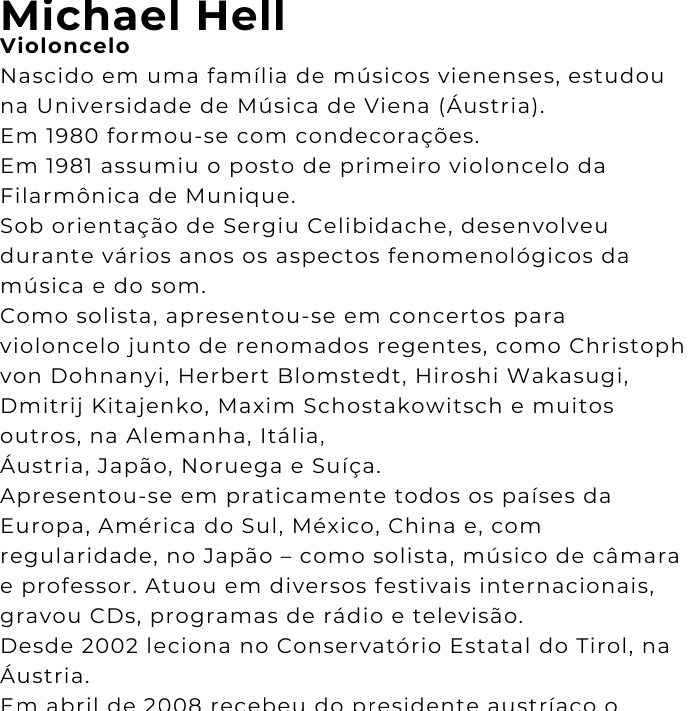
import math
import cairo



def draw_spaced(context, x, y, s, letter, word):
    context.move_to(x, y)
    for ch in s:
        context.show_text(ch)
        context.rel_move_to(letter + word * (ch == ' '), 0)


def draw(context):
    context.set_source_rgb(1, 1, 1)
    context.paint()
    context.select_font_face("Montserrat", cairo.FontSlant.NORMAL, cairo.FontWeight.BOLD)
    context.set_font_size(42)
    context.set_source_rgb(0, 0, 0)
    draw_spaced(context, 0, 30, "Michael Hell", 1.5, 0)
    context.set_font_size(21)
    draw_spaced(context, 0, 53, "Violoncelo", 1.5, 0)
    context.select_font_face("Montserrat")
    draw_spaced(context, 0, 83, "Nascido em uma família de músicos vienenses, estudou", 1.5, 0)
    draw_spaced(context, 0, 113, "na Universidade de Música de Viena (Áustria).", 1.5, 0)
    draw_spaced(context, 0, 143, "Em 1980 formou-se com condecorações.", 1.5, 0)
    draw_spaced(context, 0, 173, "Em 1981 assumiu o posto de primeiro violoncelo da", 1.5, 0)
    draw_spaced(context, 0, 203, "Filarmônica de Munique.", 1.5, 0)
    draw_spaced(context, 0, 233, "Sob orientação de Sergiu Celibidache, desenvolveu", 1.5, 0)
    draw_spaced(context, 0, 263, "durante vários anos os aspectos fenomenológicos da", 1.5, 0)
    draw_spaced(context, 0, 293, "música e do som.", 1.5, 0)
    draw_spaced(context, 0, 323, "Como solista, apresentou-se em concertos para", 1.5, 0)
    draw_spaced(context, 0, 353, "violoncelo junto de renomados regentes, como Christoph", 1.5, 0)
    draw_spaced(context, 0, 383, "von Dohnanyi, Herbert Blomstedt, Hiroshi Wakasugi,", 1.5, 0)
    draw_spaced(context, 0, 413, "Dmitrij Kitajenko, Maxim Schostakowitsch e muitos", 1.5, 0)
    draw_spaced(context, 0, 443, "outros, na Alemanha, Itália,", 1.5, 0)
    draw_spaced(context, 0, 473, "Áustria, Japão, Noruega e Suíça.", 1.5, 0)
    draw_spaced(context, 0, 503, "Apresentou-se em praticamente todos os países da", 1.5, 0)
    draw_spaced(context, 0, 533, "Europa, América do Sul, México, China e, com", 1.5, 0)
    draw_spaced(context, 0, 563, "regularidade, no Japão – como solista, músico de câmara", 1.5, 0)
    draw_spaced(context, 0, 593, "e professor. Atuou em diversos festivais internacionais,", 1.5, 0)
    draw_spaced(context, 0, 623, "gravou CDs, programas de rádio e televisão.", 1.5, 0)
    draw_spaced(context, 0, 653, "Desde 2002 leciona no Conservatório Estatal do Tirol, na", 1.5, 0)
    draw_spaced(context, 0, 683, "Áustria.", 1.5, 0)
    draw_spaced(context, 0, 713, "Em abril de 2008 recebeu do presidente austríaco o", 1.5, 0)


surface = cairo.ImageSurface(cairo.Format.RGB24, 690, 711)
context = cairo.Context(surface)
options = cairo.FontOptions()
options.set_hint_metrics(cairo.HintMetrics.OFF)
options.set_hint_style(cairo.HintStyle.NONE)
context.set_font_options(options)
context.set_miter_limit(4)
draw(context)
surface.write_to_png("out.png")
